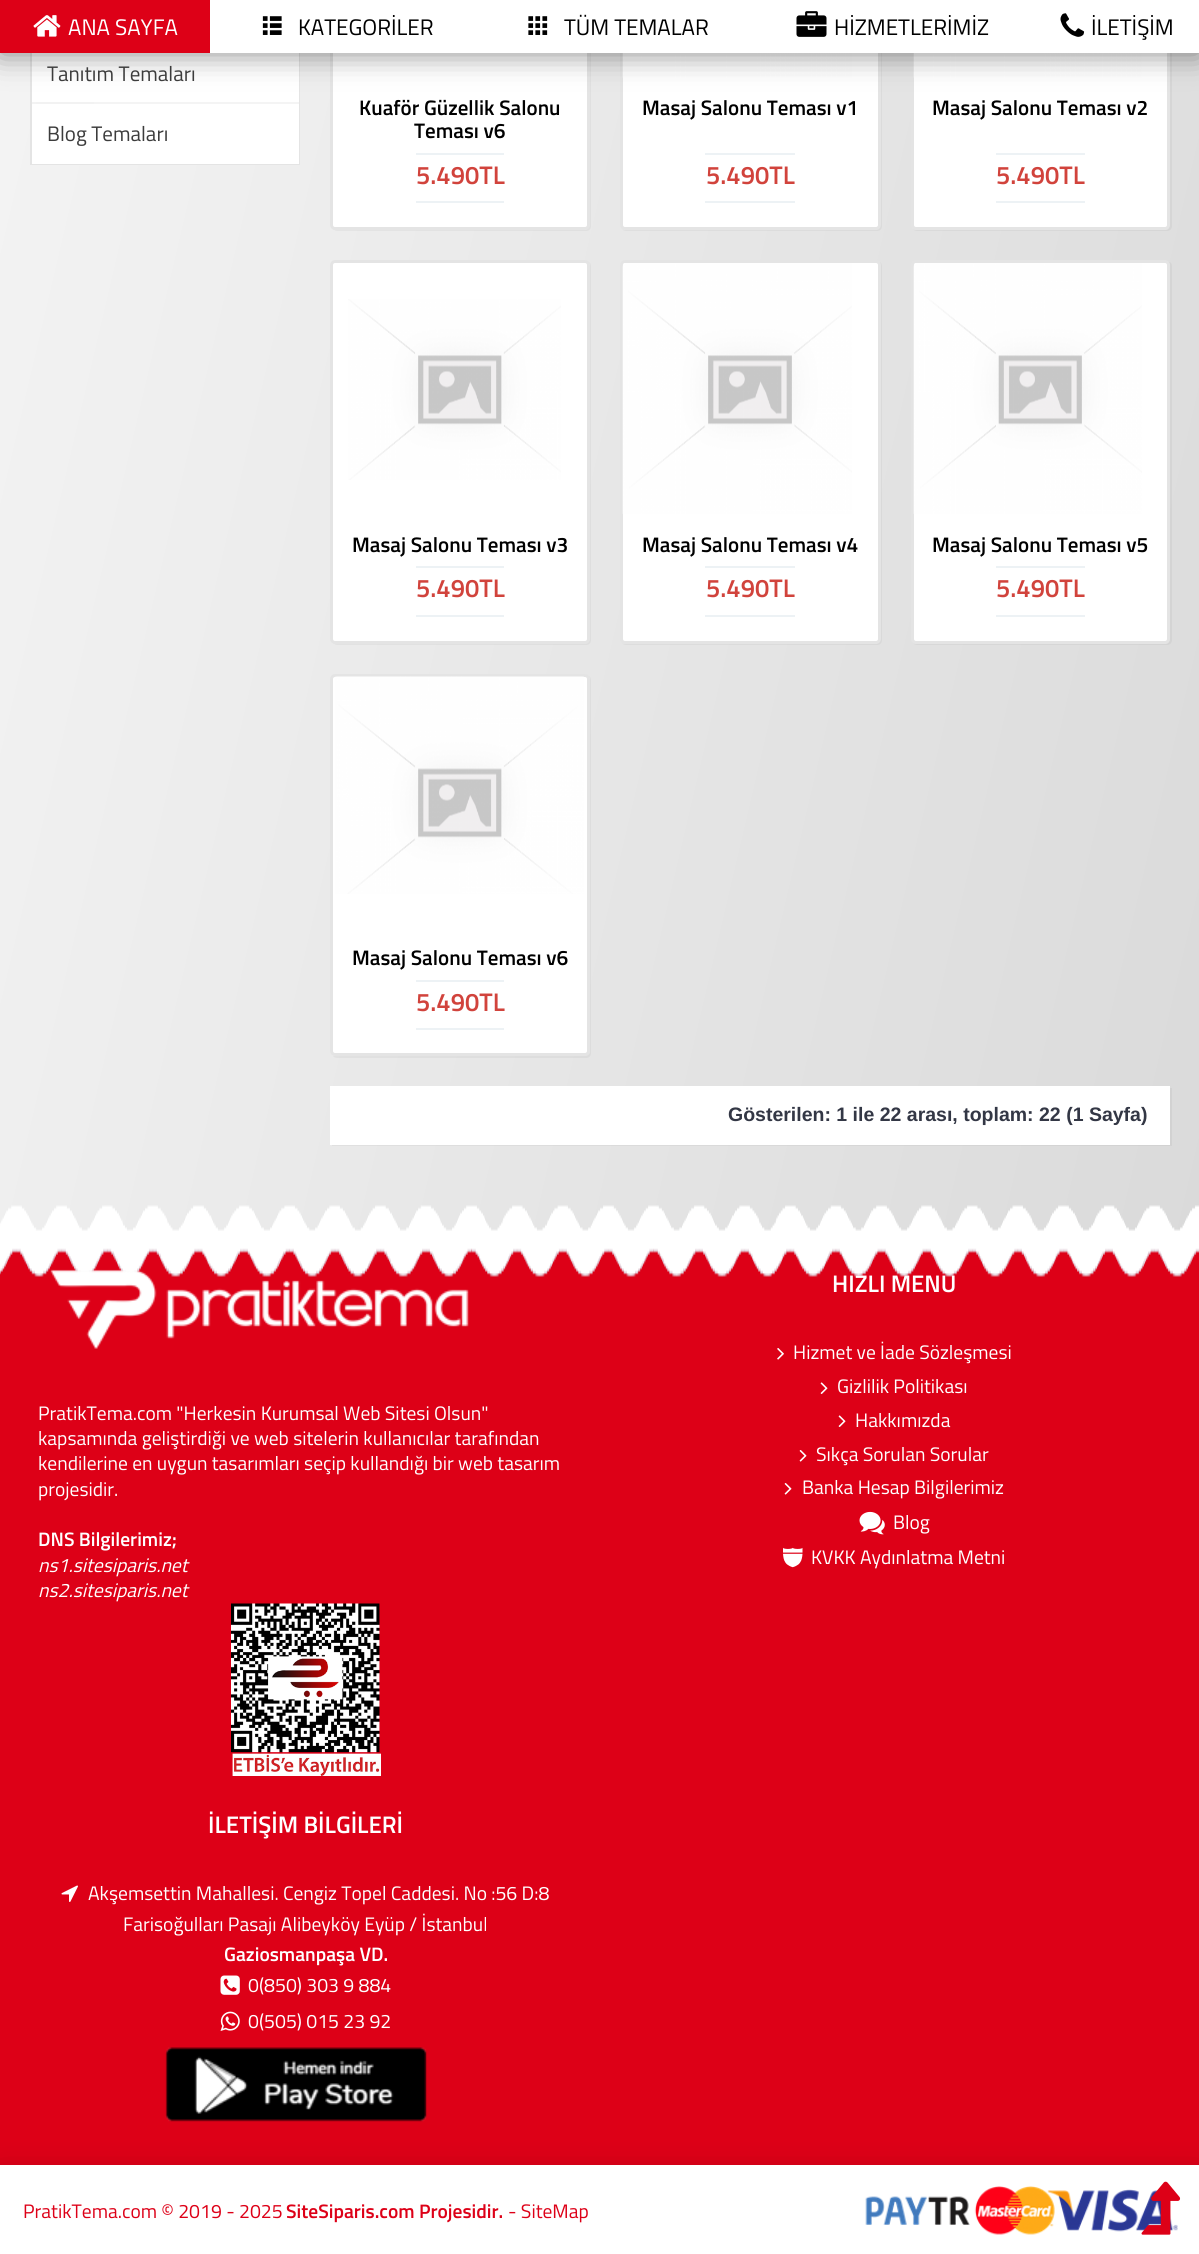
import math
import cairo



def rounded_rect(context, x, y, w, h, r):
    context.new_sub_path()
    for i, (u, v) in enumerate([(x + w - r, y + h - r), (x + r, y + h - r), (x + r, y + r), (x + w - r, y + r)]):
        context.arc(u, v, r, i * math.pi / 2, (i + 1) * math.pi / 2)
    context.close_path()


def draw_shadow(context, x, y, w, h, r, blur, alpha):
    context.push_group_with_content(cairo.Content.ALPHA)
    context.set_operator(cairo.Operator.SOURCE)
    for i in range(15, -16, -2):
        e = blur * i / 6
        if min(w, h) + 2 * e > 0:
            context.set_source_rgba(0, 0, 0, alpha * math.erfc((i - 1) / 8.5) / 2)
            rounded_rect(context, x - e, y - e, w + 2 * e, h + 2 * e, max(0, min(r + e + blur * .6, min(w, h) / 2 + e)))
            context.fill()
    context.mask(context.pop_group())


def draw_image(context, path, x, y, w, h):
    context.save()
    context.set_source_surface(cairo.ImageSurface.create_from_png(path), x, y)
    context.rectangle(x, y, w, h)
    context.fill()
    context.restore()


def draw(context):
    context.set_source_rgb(1, 1, 1)
    context.paint()
    gradient = cairo.LinearGradient(-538, -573, 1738, -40)
    gradient.add_color_stop_rgba(0, 1, 1, 1, 1)
    gradient.add_color_stop_rgba(1, 214 / 255, 214 / 255, 214 / 255, 1)
    context.set_source(gradient)
    context.rectangle(0, 53, 1199, 1178)
    context.fill()
    context.rectangle(31, -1, 268, 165)
    context.set_source_rgb(228 / 255, 228 / 255, 228 / 255)
    context.stroke()
    context.set_source_rgb(1, 1, 1)
    context.rectangle(32, 53, 267, 49)
    context.fill()
    context.set_source_rgba(0, 0, 0, 0.04)
    context.new_path()
    context.move_to(333, 229)
    context.curve_to(334, 230, 336, 231, 337, 231)
    context.line_to(586, 231)
    context.curve_to(589, 231, 591, 229, 591, 226)
    context.line_to(591, -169)
    context.curve_to(591, -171, 590, -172, 589, -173)
    context.line_to(590, -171)
    context.line_to(590, 225)
    context.curve_to(590, 227, 587, 230, 585, 230)
    context.close_path()
    context.fill()
    context.set_source_rgb(1, 1, 1)
    rounded_rect(context, 331.5, -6.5, 257, 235, 3.5)
    context.fill_preserve()
    context.set_source_rgb(228 / 255, 228 / 255, 228 / 255)
    context.set_line_width(3)
    context.stroke()
    context.set_source_rgba(0, 0, 0, 0.04)
    context.new_path()
    context.move_to(622, 229)
    context.curve_to(623, 230, 624, 231, 626, 231)
    context.line_to(877, 231)
    context.curve_to(880, 231, 882, 229, 882, 226)
    context.line_to(882, -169)
    context.curve_to(882, -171, 881, -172, 880, -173)
    context.line_to(880, -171)
    context.line_to(880, 225)
    context.curve_to(880, 227, 878, 230, 876, 230)
    context.line_to(624, 230)
    context.close_path()
    context.fill()
    context.set_source_rgb(1, 1, 1)
    rounded_rect(context, 621.5, -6.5, 258, 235, 3.5)
    context.fill_preserve()
    context.set_source_rgb(228 / 255, 228 / 255, 228 / 255)
    context.stroke()
    draw_image(context, "images/6.png", 622, 53, 230, 25)
    context.set_source_rgba(0, 0, 0, 0.04)
    context.new_path()
    context.move_to(913, 229)
    context.curve_to(914, 230, 915, 231, 917, 231)
    context.line_to(1167, 231)
    context.curve_to(1170, 231, 1172, 229, 1172, 226)
    context.line_to(1172, -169)
    context.curve_to(1172, -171, 1171, -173, 1169, -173)
    context.line_to(1170, -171)
    context.line_to(1170, 225)
    context.curve_to(1170, 227, 1168, 230, 1166, 230)
    context.line_to(915, 230)
    context.close_path()
    context.fill()
    context.set_source_rgb(1, 1, 1)
    rounded_rect(context, 912.5, -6.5, 256, 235, 3.5)
    context.fill_preserve()
    context.set_source_rgb(228 / 255, 228 / 255, 228 / 255)
    context.stroke()
    draw_image(context, "images/7.png", 913, 53, 229, 25)
    context.set_source_rgb(0, 0, 0)
    draw_shadow(context, 0, 2, 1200, 52, 0, 15, 0.45)
    context.set_source_rgb(1, 1, 1)
    context.rectangle(210, 0, 989, 53)
    context.fill()
    context.set_source_rgb(221 / 255, 0, 23 / 255)
    context.rectangle(0, 0, 210, 53)
    context.fill()
    draw_image(context, "images/1.png", 33, 15, 28, 22)
    draw_image(context, "images/2.png", 262, 16, 20, 19)
    draw_image(context, "images/3.png", 528, 16, 20, 19)
    draw_image(context, "images/4.png", 796, 11, 31, 26)
    draw_image(context, "images/5.png", 1060, 13, 25, 24)
    context.set_source_rgb(244 / 255, 244 / 255, 244 / 255)
    context.rectangle(94, 102, 205, 2)
    context.fill()
    context.set_source_rgb(1, 1, 1)
    context.rectangle(32, 104, 267, 60)
    context.fill()
    context.set_source_rgb(237 / 255, 242 / 255, 245 / 255)
    context.rectangle(416, 153, 88, 2)
    context.fill()
    context.rectangle(416, 201, 88, 2)
    context.fill()
    context.rectangle(705, 153, 90, 2)
    context.fill()
    context.rectangle(705, 201, 90, 2)
    context.fill()
    context.rectangle(996, 153, 89, 2)
    context.fill()
    context.rectangle(996, 201, 89, 2)
    context.fill()
    context.set_source_rgba(0, 0, 0, 0.04)
    context.new_path()
    context.move_to(333, 643)
    context.curve_to(334, 644, 336, 645, 337, 645)
    context.line_to(586, 645)
    context.curve_to(589, 645, 591, 643, 591, 640)
    context.line_to(591, 266)
    context.curve_to(591, 264, 590, 263, 589, 262)
    context.line_to(590, 264)
    context.line_to(590, 639)
    context.curve_to(590, 641, 587, 644, 585, 644)
    context.close_path()
    context.fill()
    context.set_source_rgb(1, 1, 1)
    rounded_rect(context, 331.5, 261.5, 257, 381, 3.5)
    context.fill_preserve()
    context.set_source_rgb(228 / 255, 228 / 255, 228 / 255)
    context.stroke()
    draw_image(context, "images/8.png", 348, 299, 213, 181)
    context.set_source_rgb(237 / 255, 242 / 255, 245 / 255)
    context.rectangle(416, 566, 88, 2)
    context.fill()
    context.rectangle(416, 615, 88, 2)
    context.fill()
    context.set_source_rgba(0, 0, 0, 0.04)
    context.new_path()
    context.move_to(622, 643)
    context.curve_to(623, 644, 624, 645, 626, 645)
    context.line_to(877, 645)
    context.curve_to(880, 645, 882, 643, 882, 640)
    context.line_to(882, 266)
    context.curve_to(882, 264, 881, 263, 880, 262)
    context.line_to(880, 264)
    context.line_to(880, 639)
    context.curve_to(880, 641, 878, 644, 876, 644)
    context.line_to(624, 644)
    context.close_path()
    context.fill()
    context.set_source_rgb(1, 1, 1)
    rounded_rect(context, 621.5, 261.5, 258, 381, 3.5)
    context.fill_preserve()
    context.set_source_rgb(228 / 255, 228 / 255, 228 / 255)
    context.stroke()
    draw_image(context, "images/9.png", 622, 263, 230, 251)
    context.set_source_rgb(237 / 255, 242 / 255, 245 / 255)
    context.rectangle(705, 566, 90, 2)
    context.fill()
    context.rectangle(705, 615, 90, 2)
    context.fill()
    context.set_source_rgba(0, 0, 0, 0.04)
    context.new_path()
    context.move_to(913, 643)
    context.curve_to(914, 644, 915, 645, 917, 645)
    context.line_to(1167, 645)
    context.curve_to(1170, 645, 1172, 643, 1172, 640)
    context.line_to(1172, 266)
    context.curve_to(1172, 264, 1171, 262, 1169, 262)
    context.line_to(1170, 264)
    context.line_to(1170, 639)
    context.curve_to(1170, 641, 1168, 644, 1166, 644)
    context.line_to(915, 644)
    context.close_path()
    context.fill()
    context.set_source_rgb(1, 1, 1)
    rounded_rect(context, 912.5, 261.5, 256, 381, 3.5)
    context.fill_preserve()
    context.set_source_rgb(228 / 255, 228 / 255, 228 / 255)
    context.stroke()
    draw_image(context, "images/10.png", 913, 263, 229, 251)
    context.set_source_rgb(237 / 255, 242 / 255, 245 / 255)
    context.rectangle(996, 566, 89, 2)
    context.fill()
    context.rectangle(996, 615, 89, 2)
    context.fill()
    context.set_source_rgba(0, 0, 0, 0.04)
    context.new_path()
    context.move_to(333, 1056)
    context.curve_to(334, 1057, 335, 1058, 337, 1058)
    context.line_to(586, 1058)
    context.curve_to(589, 1058, 591, 1056, 591, 1053)
    context.line_to(591, 680)
    context.curve_to(591, 678, 590, 677, 589, 676)
    context.line_to(590, 678)
    context.line_to(590, 1052)
    context.curve_to(590, 1054, 587, 1056, 585, 1056)
    context.close_path()
    context.fill()
    context.set_source_rgb(1, 1, 1)
    rounded_rect(context, 331.5, 675.5, 257, 379, 3.5)
    context.fill_preserve()
    context.set_source_rgb(228 / 255, 228 / 255, 228 / 255)
    context.stroke()
    draw_image(context, "images/11.png", 335, 676, 249, 218)
    context.set_source_rgb(237 / 255, 242 / 255, 245 / 255)
    context.rectangle(416, 980, 88, 2)
    context.fill()
    context.rectangle(416, 1028, 88, 2)
    context.fill()
    context.set_source_rgba(0, 0, 0, 0.04)
    context.new_path()
    context.move_to(332, 1144)
    context.line_to(332, 1146)
    context.line_to(1172, 1146)
    context.line_to(1172, 1088)
    context.line_to(1170, 1088)
    context.line_to(1170, 1144)
    context.close_path()
    context.fill()
    context.set_source_rgb(1, 1, 1)
    context.rectangle(330, 1086, 840, 59)
    context.fill()
    draw_image(context, "images/12.png", 0, 1205, 1199, 960)
    draw_image(context, "images/13.png", 50, 1269, 419, 80)
    draw_image(context, "images/14.png", 231, 1603, 150, 173)
    draw_image(context, "images/15.png", 777, 1348, 7, 12)
    draw_image(context, "images/16.png", 820, 1382, 8, 12)
    draw_image(context, "images/16.png", 838, 1415, 8, 12)
    draw_image(context, "images/17.png", 799, 1450, 8, 12)
    draw_image(context, "images/17.png", 784, 1483, 8, 12)
    draw_image(context, "images/18.png", 859, 1511, 26, 24)
    draw_image(context, "images/19.png", 783, 1547, 20, 21)
    draw_image(context, "images/20.png", 61, 1885, 17, 17)
    draw_image(context, "images/21.png", 220, 1975, 20, 20)
    draw_image(context, "images/22.png", 220, 2011, 20, 20)
    draw_image(context, "images/23.png", 165, 2047, 262, 75)
    context.set_source_rgb(0, 0, 0)
    draw_shadow(context, 0, 2174, 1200, 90, 0, 15, 0.2)
    context.set_source_rgb(1, 1, 1)
    context.rectangle(0, 2165, 1199, 89)
    context.fill()
    draw_image(context, "images/24.png", 865, 2186, 313, 49)
    draw_image(context, "images/25.png", 1141, 2181, 40, 54)
    context.select_font_face("Titillium Web")
    context.set_font_size(22.5)
    context.move_to(68, 35)
    context.show_text("ANA SAYFA")
    context.set_source_rgb(0, 0, 0)
    context.move_to(298, 35)
    context.show_text("KATEGORİLER")
    context.move_to(564, 35)
    context.show_text("TÜM TEMALAR")
    context.move_to(834, 35)
    context.show_text("HİZMETLERİMİZ")
    context.move_to(1091, 35)
    context.show_text("İLETİŞİM")
    context.set_font_size(21)
    context.set_source_rgb(60 / 255, 60 / 255, 60 / 255)
    context.move_to(47, 81)
    context.show_text("Tanıtım Temaları")
    context.move_to(47, 141)
    context.show_text("Blog Temaları")
    context.select_font_face("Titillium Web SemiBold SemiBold")
    context.set_source_rgb(0, 0, 0)
    context.move_to(359, 115)
    context.show_text("Kuaför Güzellik Salonu")
    context.move_to(414, 138)
    context.show_text("Teması v6")
    context.set_font_size(25.5)
    context.set_source_rgb(209 / 255, 67 / 255, 60 / 255)
    context.move_to(416, 184)
    context.show_text("5.490TL")
    context.set_font_size(21)
    context.set_source_rgb(0, 0, 0)
    context.move_to(642, 115)
    context.show_text("Masaj Salonu Teması v1")
    context.set_font_size(25.5)
    context.set_source_rgb(209 / 255, 67 / 255, 60 / 255)
    context.move_to(706, 184)
    context.show_text("5.490TL")
    context.set_font_size(21)
    context.set_source_rgb(0, 0, 0)
    context.move_to(932, 115)
    context.show_text("Masaj Salonu Teması v2")
    context.set_font_size(25.5)
    context.set_source_rgb(209 / 255, 67 / 255, 60 / 255)
    context.move_to(996, 184)
    context.show_text("5.490TL")
    context.set_font_size(21)
    context.set_source_rgb(0, 0, 0)
    context.move_to(352, 552)
    context.show_text("Masaj Salonu Teması v3")
    context.set_font_size(25.5)
    context.set_source_rgb(209 / 255, 67 / 255, 60 / 255)
    context.move_to(416, 597)
    context.show_text("5.490TL")
    context.set_font_size(21)
    context.set_source_rgb(0, 0, 0)
    context.move_to(642, 552)
    context.show_text("Masaj Salonu Teması v4")
    context.set_font_size(25.5)
    context.set_source_rgb(209 / 255, 67 / 255, 60 / 255)
    context.move_to(706, 597)
    context.show_text("5.490TL")
    context.set_font_size(21)
    context.set_source_rgb(0, 0, 0)
    context.move_to(932, 552)
    context.show_text("Masaj Salonu Teması v5")
    context.set_font_size(25.5)
    context.set_source_rgb(209 / 255, 67 / 255, 60 / 255)
    context.move_to(996, 597)
    context.show_text("5.490TL")
    context.set_font_size(21)
    context.set_source_rgb(0, 0, 0)
    context.move_to(352, 965)
    context.show_text("Masaj Salonu Teması v6")
    context.set_font_size(25.5)
    context.set_source_rgb(209 / 255, 67 / 255, 60 / 255)
    context.move_to(416, 1011)
    context.show_text("5.490TL")
    context.select_font_face("Liberation Sans", cairo.FontSlant.NORMAL, cairo.FontWeight.BOLD)
    context.set_font_size(19.5)
    context.set_source_rgb(51 / 255, 55 / 255, 69 / 255)
    context.move_to(728, 1121)
    context.show_text("Gösterilen: 1 ile 22 arası, toplam: 22 (1 Sayfa)")
    context.select_font_face("Titillium Web")
    context.set_source_rgb(1, 1, 1)
    context.move_to(38, 1420)
    context.show_text("PratikTema.com \"Herkesin Kurumsal Web Sitesi Olsun\"")
    context.move_to(38, 1445)
    context.show_text("kapsamında geliştirdiği ve web sitelerin kullanıcılar tarafından")
    context.move_to(38, 1470)
    context.show_text("kendilerine en uygun tasarımları seçip kullandığı bir web tasarım")
    context.move_to(38, 1496)
    context.show_text("projesidir.")
    context.select_font_face("Titillium Web SemiBold SemiBold")
    context.move_to(38, 1546)
    context.show_text("DNS Bilgilerimiz;")
    context.select_font_face("Titillium Web", cairo.FontSlant.ITALIC)
    context.move_to(38, 1572)
    context.show_text("ns1.sitesiparis.net")
    context.move_to(38, 1597)
    context.show_text("ns2.sitesiparis.net")
    context.select_font_face("Titillium Web SemiBold SemiBold")
    context.set_font_size(24)
    context.move_to(832, 1292)
    context.show_text("HIZLI MENÜ")
    context.select_font_face("Titillium Web")
    context.set_font_size(19.5)
    context.move_to(793, 1359)
    context.show_text("Hizmet ve İade Sözleşmesi")
    context.move_to(837, 1393)
    context.show_text("Gizlilik Politikası")
    context.move_to(855, 1427)
    context.show_text("Hakkımızda")
    context.move_to(816, 1461)
    context.show_text("Sıkça Sorulan Sorular")
    context.move_to(802, 1494)
    context.show_text("Banka Hesap Bilgilerimiz")
    context.move_to(893, 1529)
    context.show_text("Blog")
    context.move_to(811, 1564)
    context.show_text("KVKK Aydınlatma Metni")
    context.select_font_face("Titillium Web SemiBold SemiBold")
    context.set_font_size(24)
    context.move_to(208, 1833)
    context.show_text("İLETİŞİM BİLGİLERİ")
    context.select_font_face("Titillium Web")
    context.set_font_size(19.5)
    context.move_to(88, 1900)
    context.show_text("Akşemsettin Mahallesi. Cengiz Topel Caddesi. No :56 D:8")
    context.move_to(123, 1931)
    context.show_text("Farisoğulları Pasajı Alibeyköy Eyüp / İstanbul")
    context.select_font_face("Titillium Web SemiBold SemiBold")
    context.move_to(224, 1961)
    context.show_text("Gaziosmanpaşa VD.")
    context.select_font_face("Titillium Web")
    context.move_to(248, 1992)
    context.show_text("0(850) 303 9 884")
    context.move_to(248, 2028)
    context.show_text("0(505) 015 23 92")
    context.set_source_rgb(221 / 255, 0, 23 / 255)
    context.move_to(23, 2218)
    context.show_text("PratikTema.com © 2019 - 2025")
    context.select_font_face("Titillium Web SemiBold SemiBold")
    context.move_to(286, 2218)
    context.show_text("SiteSiparis.com Projesidir.")
    context.select_font_face("Titillium Web")
    context.move_to(508, 2218)
    context.show_text("- SiteMap")


surface = cairo.ImageSurface(cairo.Format.RGB24, 1199, 2254)
context = cairo.Context(surface)
options = cairo.FontOptions()
options.set_hint_metrics(cairo.HintMetrics.OFF)
options.set_hint_style(cairo.HintStyle.NONE)
context.set_font_options(options)
context.set_miter_limit(4)
draw(context)
surface.write_to_png("out.png")
